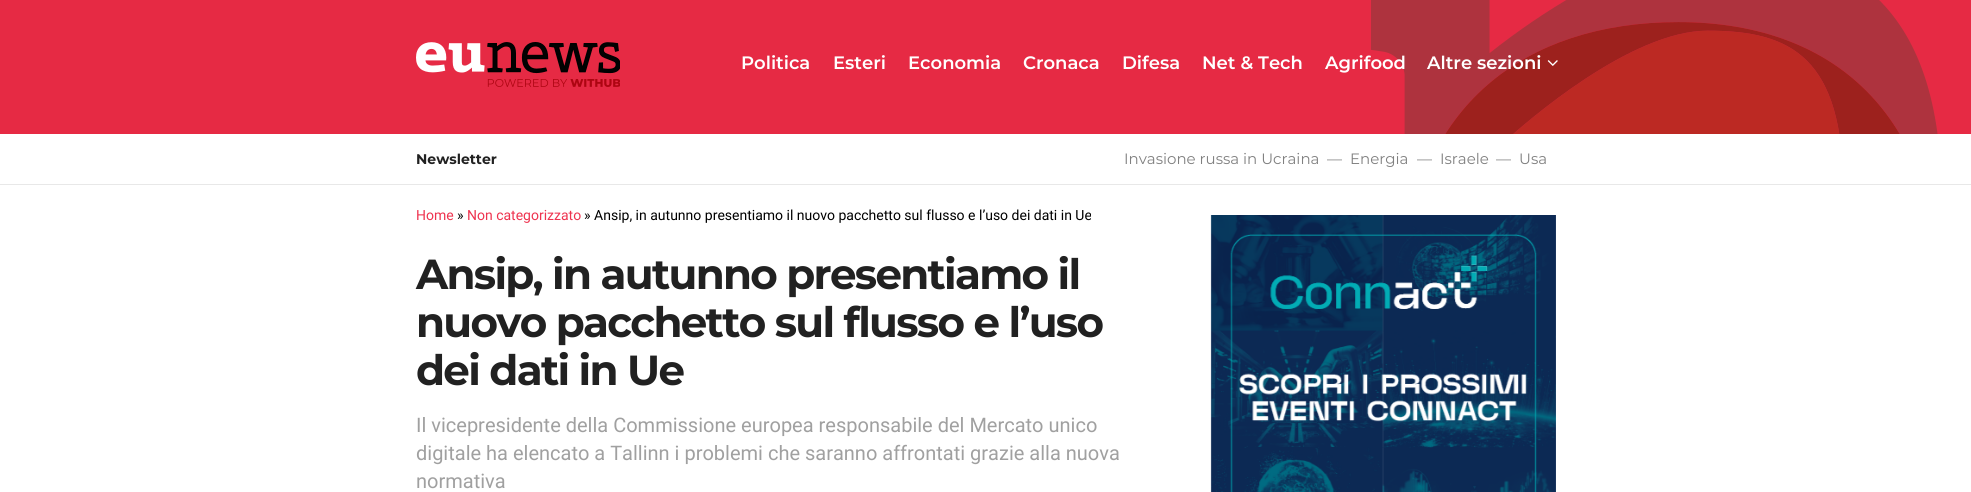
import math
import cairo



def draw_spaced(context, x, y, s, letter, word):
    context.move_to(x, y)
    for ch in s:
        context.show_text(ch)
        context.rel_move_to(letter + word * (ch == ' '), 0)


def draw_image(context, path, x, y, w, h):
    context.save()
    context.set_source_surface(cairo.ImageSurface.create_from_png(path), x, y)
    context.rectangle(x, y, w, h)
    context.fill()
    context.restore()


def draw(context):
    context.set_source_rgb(1, 1, 1)
    context.paint()
    context.set_source_rgb(230 / 255, 42 / 255, 68 / 255)
    context.rectangle(0, 0, 1971, 134)
    context.fill()
    draw_image(context, "images/1.png", 1371, 0, 567, 134)
    draw_image(context, "images/2.png", 416, 42, 204, 45)
    draw_image(context, "images/3.png", 1547, 60, 11, 6)
    context.set_source_rgb(232 / 255, 232 / 255, 232 / 255)
    context.rectangle(0, 184, 1971, 1)
    context.fill()
    draw_image(context, "images/4.png", 1210, 215, 346, 277)
    context.select_font_face("Montserrat SemiBold")
    context.set_font_size(18)
    context.set_source_rgb(1, 1, 1)
    context.move_to(741, 69)
    context.show_text("Politica")
    context.move_to(833, 69)
    context.show_text("Esteri")
    context.move_to(908, 69)
    context.show_text("Economia")
    context.move_to(1023, 69)
    context.show_text("Cronaca")
    context.move_to(1122, 69)
    context.show_text("Difesa")
    context.move_to(1202, 69)
    context.show_text("Net & Tech")
    context.move_to(1325, 69)
    context.show_text("Agrifood")
    context.move_to(1427, 69)
    context.show_text("Altre sezioni")
    context.select_font_face("Montserrat", cairo.FontSlant.NORMAL, cairo.FontWeight.BOLD)
    context.set_font_size(14)
    context.set_source_rgb(33 / 255, 33 / 255, 33 / 255)
    context.move_to(416, 164)
    context.show_text("Newsletter")
    context.select_font_face("Montserrat")
    context.set_font_size(15)
    context.set_source_rgb(128 / 255, 128 / 255, 128 / 255)
    context.move_to(1124, 164)
    context.show_text("Invasione russa in Ucraina")
    context.move_to(1327, 164)
    context.show_text("—")
    context.move_to(1350, 164)
    context.show_text("Energia")
    context.move_to(1417, 164)
    context.show_text("—")
    context.move_to(1440, 164)
    context.show_text("Israele")
    context.move_to(1496, 164)
    context.show_text("—")
    context.move_to(1519, 164)
    context.show_text("Usa")
    context.select_font_face("Roboto")
    context.set_font_size(14)
    context.set_source_rgb(238 / 255, 51 / 255, 79 / 255)
    context.move_to(416, 220)
    context.show_text("Home")
    context.set_source_rgb(0, 0, 0)
    context.move_to(457, 220)
    context.show_text("»")
    context.set_source_rgb(238 / 255, 51 / 255, 79 / 255)
    context.move_to(467, 220)
    context.show_text("Non categorizzato")
    context.set_source_rgb(0, 0, 0)
    context.move_to(584, 220)
    context.show_text("» Ansip, in autunno presentiamo il nuovo pacchetto sul flusso e l’uso dei dati in Ue")
    context.select_font_face("Montserrat", cairo.FontSlant.NORMAL, cairo.FontWeight.BOLD)
    context.set_font_size(42)
    context.set_source_rgb(33 / 255, 33 / 255, 33 / 255)
    draw_spaced(context, 416, 289, "Ansip, in autunno presentiamo il", -1.7, 0)
    draw_spaced(context, 416, 337, "nuovo pacchetto sul flusso e l’uso", -1.7, 0)
    draw_spaced(context, 416, 385, "dei dati in Ue", -1.7, 0)
    context.select_font_face("Roboto")
    context.set_font_size(20)
    context.set_source_rgb(160 / 255, 160 / 255, 160 / 255)
    context.move_to(416, 432)
    context.show_text("Il vicepresidente della Commissione europea responsabile del Mercato unico")
    context.move_to(416, 460)
    context.show_text("digitale ha elencato a Tallinn i problemi che saranno affrontati grazie alla nuova")
    context.move_to(416, 488)
    context.show_text("normativa")


surface = cairo.ImageSurface(cairo.Format.RGB24, 1971, 492)
context = cairo.Context(surface)
options = cairo.FontOptions()
options.set_hint_metrics(cairo.HintMetrics.OFF)
options.set_hint_style(cairo.HintStyle.NONE)
context.set_font_options(options)
context.set_miter_limit(4)
draw(context)
surface.write_to_png("out.png")
